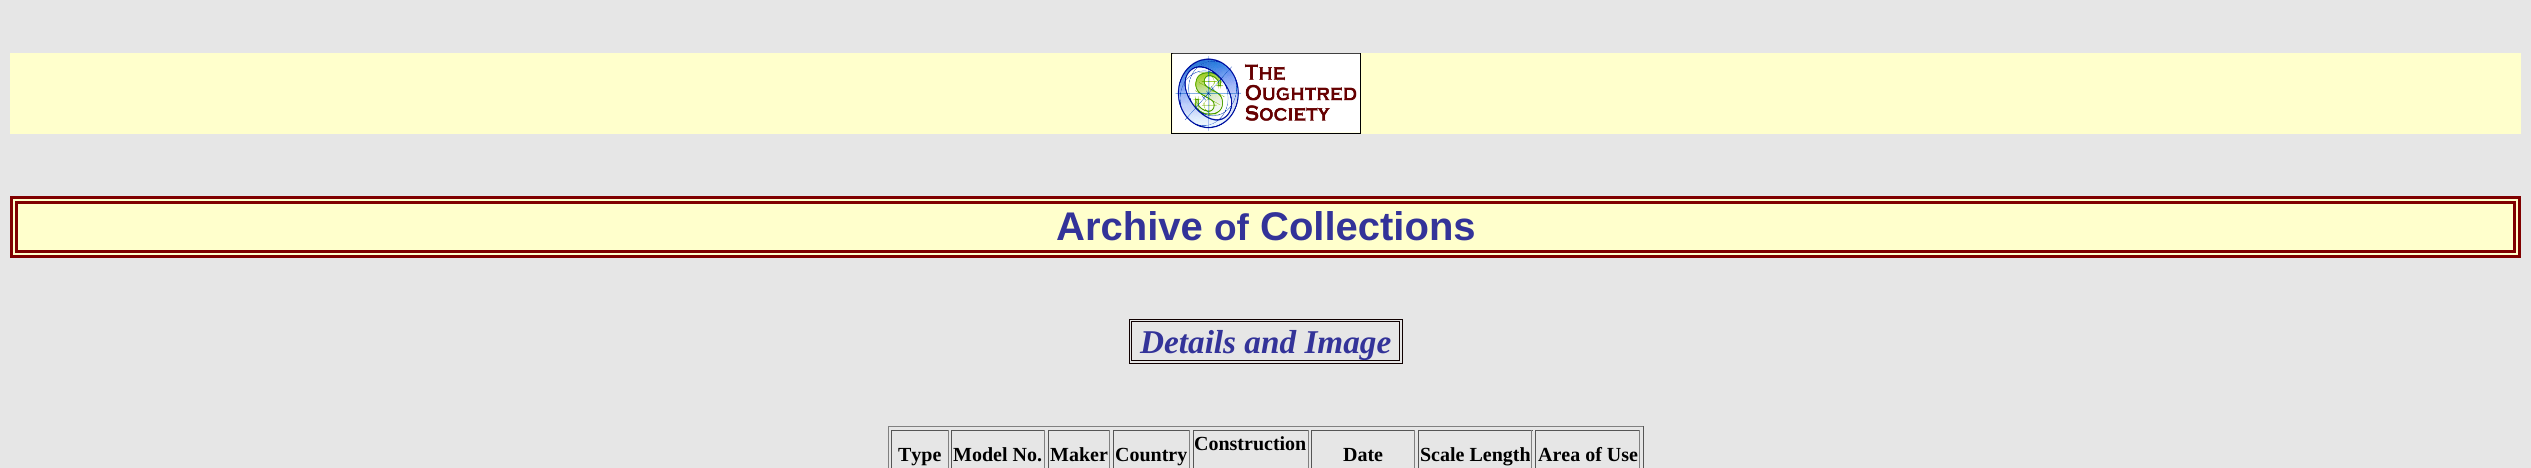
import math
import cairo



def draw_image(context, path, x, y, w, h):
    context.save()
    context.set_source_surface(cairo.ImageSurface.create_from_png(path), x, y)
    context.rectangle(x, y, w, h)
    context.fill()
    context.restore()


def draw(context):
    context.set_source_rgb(230 / 255, 230 / 255, 230 / 255)
    context.paint()
    context.set_source_rgb(1, 1, 204 / 255)
    context.rectangle(10, 53, 2511, 81)
    context.fill()
    context.rectangle(1171.5, 53.5, 189, 80)
    context.set_source_rgb(0, 0, 0)
    context.set_line_width(1)
    context.stroke()
    draw_image(context, "images/1.png", 1172, 53, 188, 80)
    context.set_source_rgb(1, 1, 204 / 255)
    context.rectangle(11.5, 197.5, 2508, 59)
    context.fill_preserve()
    context.set_source_rgb(128 / 255, 0, 0)
    context.set_line_width(3)
    context.stroke()
    context.rectangle(16.5, 202.5, 2498, 49)
    context.stroke()
    context.rectangle(1129.5, 319.5, 273, 44)
    context.set_source_rgb(16 / 255, 0, 0)
    context.set_line_width(1)
    context.stroke()
    context.rectangle(1131.5, 321.5, 268, 39)
    context.stroke()
    context.set_source_rgb(128 / 255, 128 / 255, 128 / 255)
    context.rectangle(888, 426, 756, 1)
    context.fill()
    context.set_source_rgb(85 / 255, 85 / 255, 85 / 255)
    context.rectangle(1643, 426, 1, 42)
    context.fill()
    context.set_source_rgb(128 / 255, 128 / 255, 128 / 255)
    context.rectangle(888, 426, 1, 42)
    context.fill()
    context.set_source_rgb(85 / 255, 85 / 255, 85 / 255)
    context.rectangle(1193, 430, 116, 1)
    context.fill()
    context.set_source_rgb(128 / 255, 128 / 255, 128 / 255)
    context.rectangle(1308, 430, 1, 38)
    context.fill()
    context.set_source_rgb(85 / 255, 85 / 255, 85 / 255)
    context.rectangle(1193, 430, 1, 38)
    context.fill()
    context.rectangle(891, 430, 58, 1)
    context.fill()
    context.set_source_rgb(128 / 255, 128 / 255, 128 / 255)
    context.rectangle(948, 430, 1, 38)
    context.fill()
    context.set_source_rgb(85 / 255, 85 / 255, 85 / 255)
    context.rectangle(891, 430, 1, 38)
    context.fill()
    context.rectangle(951, 430, 94, 1)
    context.fill()
    context.set_source_rgb(128 / 255, 128 / 255, 128 / 255)
    context.rectangle(1044, 430, 1, 38)
    context.fill()
    context.set_source_rgb(85 / 255, 85 / 255, 85 / 255)
    context.rectangle(951, 430, 1, 38)
    context.fill()
    context.rectangle(1048, 430, 62, 1)
    context.fill()
    context.set_source_rgb(128 / 255, 128 / 255, 128 / 255)
    context.rectangle(1109, 430, 1, 38)
    context.fill()
    context.set_source_rgb(85 / 255, 85 / 255, 85 / 255)
    context.rectangle(1048, 430, 1, 38)
    context.fill()
    context.rectangle(1113, 430, 77, 1)
    context.fill()
    context.set_source_rgb(128 / 255, 128 / 255, 128 / 255)
    context.rectangle(1189, 430, 1, 38)
    context.fill()
    context.set_source_rgb(85 / 255, 85 / 255, 85 / 255)
    context.rectangle(1113, 430, 1, 38)
    context.fill()
    context.rectangle(1311, 430, 104, 1)
    context.fill()
    context.set_source_rgb(128 / 255, 128 / 255, 128 / 255)
    context.rectangle(1414, 430, 1, 38)
    context.fill()
    context.set_source_rgb(85 / 255, 85 / 255, 85 / 255)
    context.rectangle(1311, 430, 1, 38)
    context.fill()
    context.rectangle(1418, 430, 115, 1)
    context.fill()
    context.set_source_rgb(128 / 255, 128 / 255, 128 / 255)
    context.rectangle(1531, 430, 1, 38)
    context.fill()
    context.set_source_rgb(85 / 255, 85 / 255, 85 / 255)
    context.rectangle(1418, 430, 1, 38)
    context.fill()
    context.rectangle(1535, 430, 105, 1)
    context.fill()
    context.set_source_rgb(128 / 255, 128 / 255, 128 / 255)
    context.rectangle(1639, 430, 1, 38)
    context.fill()
    context.set_source_rgb(85 / 255, 85 / 255, 85 / 255)
    context.rectangle(1535, 430, 1, 38)
    context.fill()
    context.select_font_face("Liberation Sans", cairo.FontSlant.NORMAL, cairo.FontWeight.BOLD)
    context.set_font_size(40)
    context.set_source_rgb(51 / 255, 51 / 255, 153 / 255)
    context.move_to(1056, 240)
    context.show_text("Archive")
    context.set_font_size(37)
    context.move_to(1214, 240)
    context.show_text("of")
    context.set_font_size(40)
    context.move_to(1260, 240)
    context.show_text("Collections")
    context.select_font_face("Liberation Serif", cairo.FontSlant.ITALIC, cairo.FontWeight.BOLD)
    context.set_font_size(33.25)
    context.move_to(1140, 353)
    context.show_text("Details and Image")
    context.select_font_face("Liberation Serif", cairo.FontSlant.NORMAL, cairo.FontWeight.BOLD)
    context.set_font_size(20)
    context.set_source_rgb(0, 0, 0)
    context.move_to(1194, 450)
    context.show_text("Construction")
    context.move_to(898, 461)
    context.show_text("Type")
    context.move_to(953, 461)
    context.show_text("Model No.")
    context.move_to(1050, 461)
    context.show_text("Maker")
    context.move_to(1115, 461)
    context.show_text("Country")
    context.move_to(1343, 461)
    context.show_text("Date")
    context.move_to(1420, 461)
    context.show_text("Scale Length")
    context.move_to(1538, 461)
    context.show_text("Area of Use")


surface = cairo.ImageSurface(cairo.Format.RGB24, 2531, 468)
context = cairo.Context(surface)
options = cairo.FontOptions()
options.set_hint_metrics(cairo.HintMetrics.OFF)
options.set_hint_style(cairo.HintStyle.NONE)
context.set_font_options(options)
context.set_miter_limit(4)
draw(context)
surface.write_to_png("out.png")
